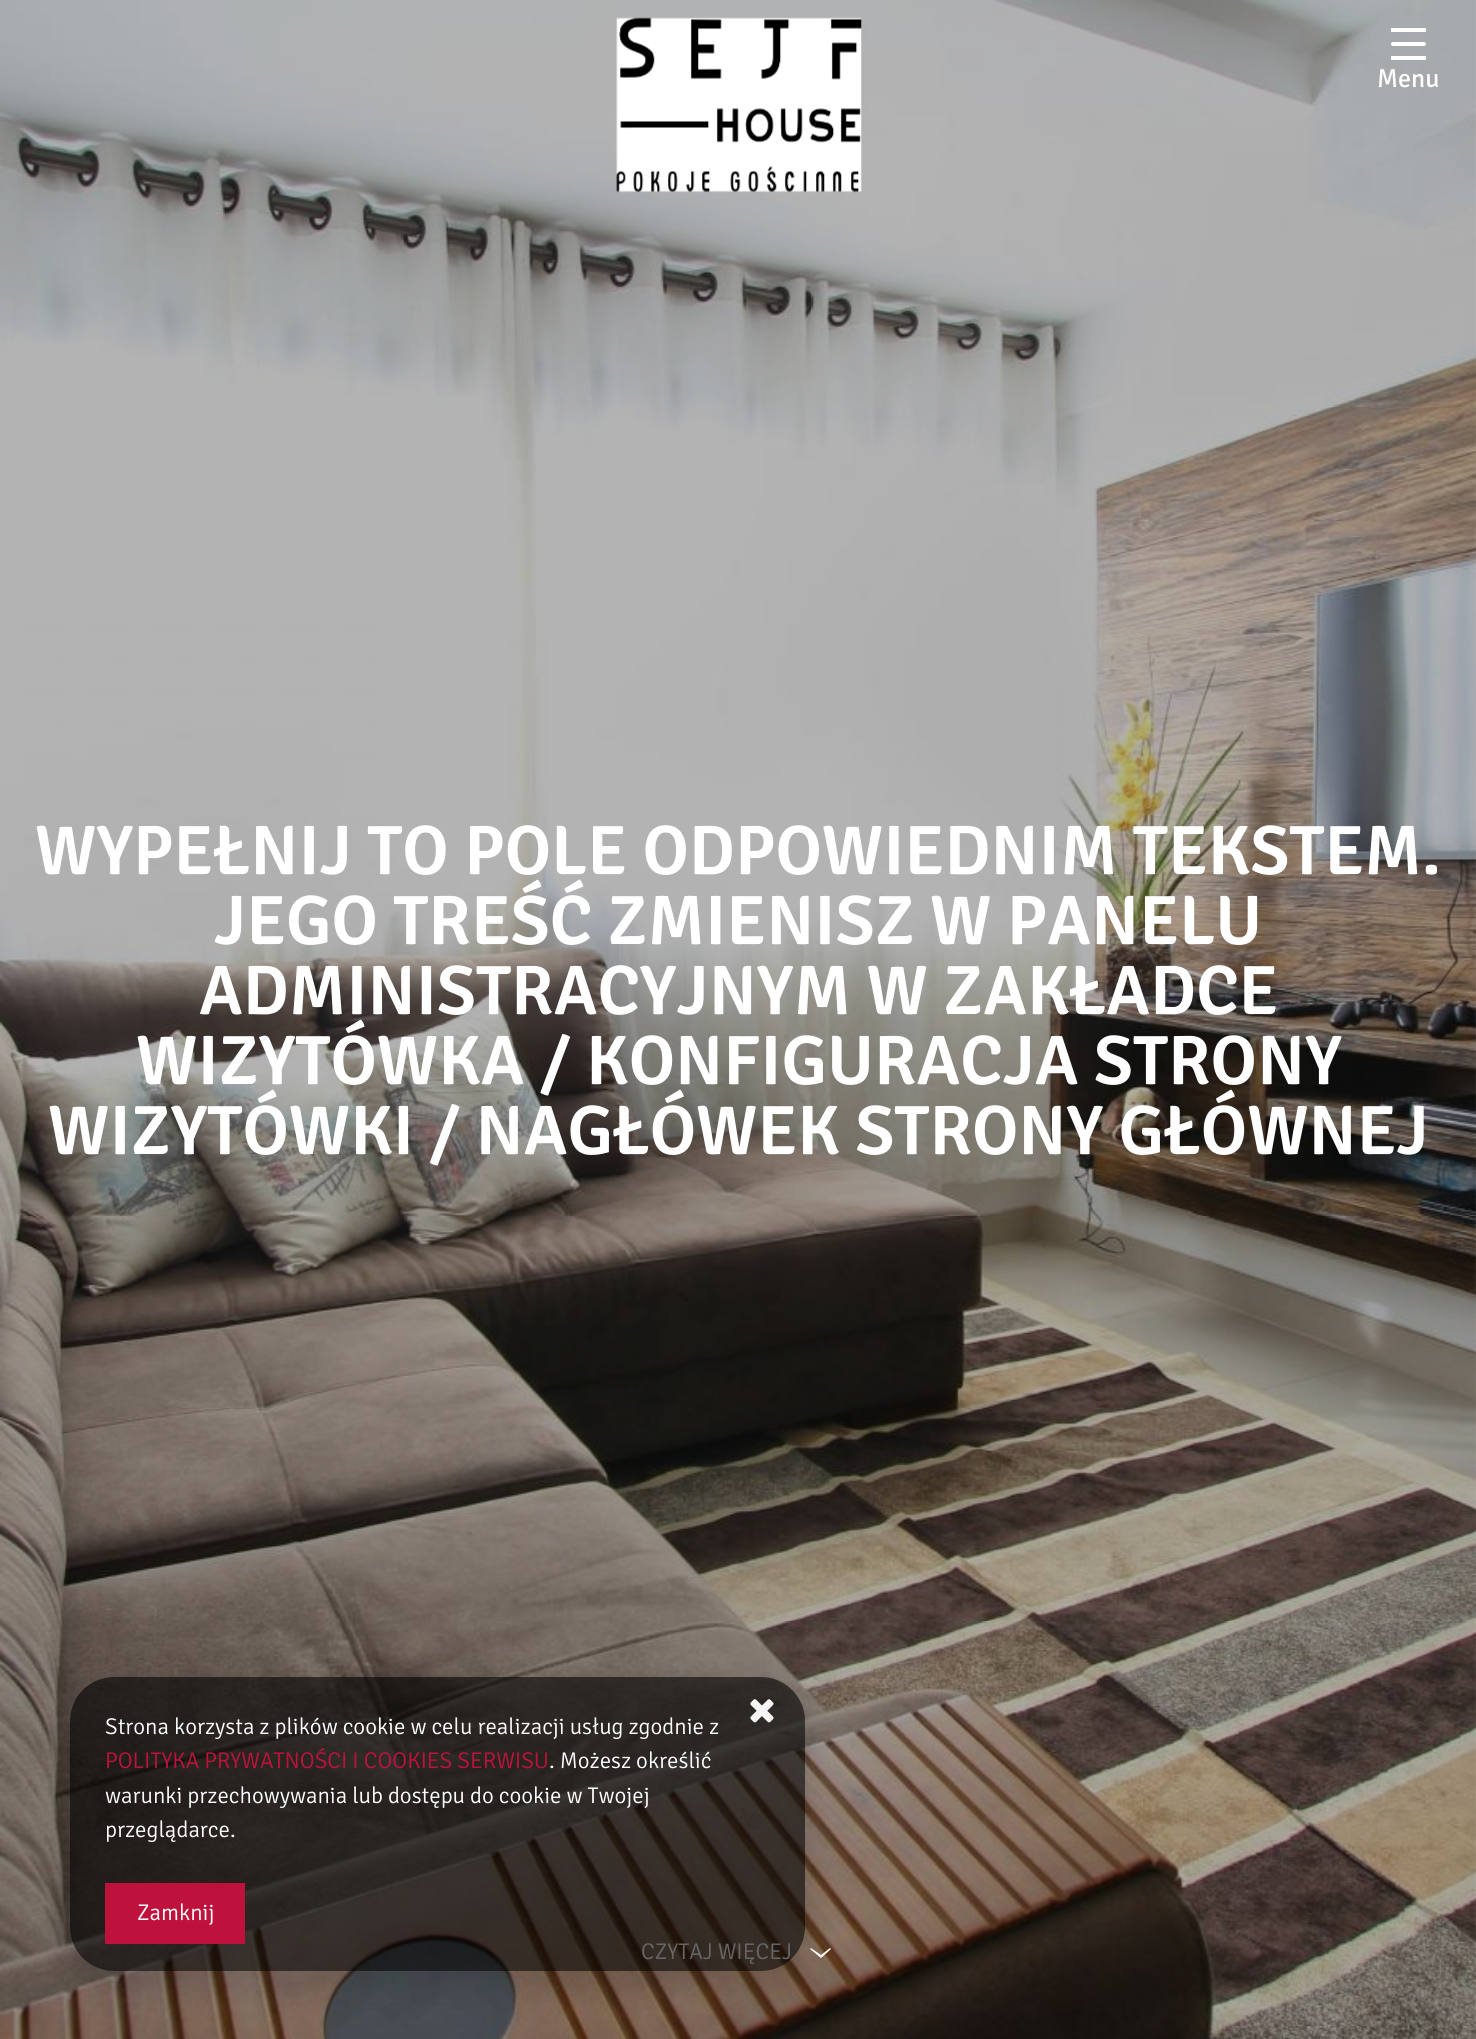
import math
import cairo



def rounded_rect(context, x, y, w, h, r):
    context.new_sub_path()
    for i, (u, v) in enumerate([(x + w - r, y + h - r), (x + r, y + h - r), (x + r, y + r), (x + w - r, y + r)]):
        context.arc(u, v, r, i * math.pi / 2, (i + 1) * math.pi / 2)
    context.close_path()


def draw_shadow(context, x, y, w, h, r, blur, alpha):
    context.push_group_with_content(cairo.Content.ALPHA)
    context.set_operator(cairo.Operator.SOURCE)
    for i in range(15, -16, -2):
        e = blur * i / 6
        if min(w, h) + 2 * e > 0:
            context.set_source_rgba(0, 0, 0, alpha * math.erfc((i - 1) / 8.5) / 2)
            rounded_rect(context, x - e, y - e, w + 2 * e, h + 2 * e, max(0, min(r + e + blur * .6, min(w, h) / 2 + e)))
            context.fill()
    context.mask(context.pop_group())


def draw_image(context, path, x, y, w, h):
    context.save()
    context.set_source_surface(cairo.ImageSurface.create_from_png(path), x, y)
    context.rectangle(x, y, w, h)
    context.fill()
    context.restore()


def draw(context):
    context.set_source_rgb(1, 1, 1)
    context.paint()
    draw_image(context, "images/2.png", 0, 0, 1476, 2039)
    draw_image(context, "images/1.png", 616, 17, 246, 176)
    context.set_source_rgb(1, 1, 1)
    rounded_rect(context, 1391, 42, 35, 4, 2)
    context.fill()
    context.rectangle(1391, 28, 35, 4)
    context.fill()
    context.rectangle(1391, 56, 35, 4)
    context.fill()
    context.new_path()
    context.move_to(831, 1949)
    context.line_to(821, 1958)
    context.line_to(810, 1949)
    context.line_to(811, 1948)
    context.line_to(821, 1955)
    context.line_to(830, 1948)
    context.close_path()
    context.fill()
    context.save()
    context.set_fill_rule(cairo.FillRule.EVEN_ODD)
    context.new_path()
    context.move_to(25, 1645)
    context.line_to(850, 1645)
    context.line_to(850, 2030)
    context.line_to(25, 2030)
    context.close_path()
    context.move_to(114, 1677)
    context.line_to(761, 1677)
    context.curve_to(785.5, 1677, 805, 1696.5, 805, 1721)
    context.line_to(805, 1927)
    context.curve_to(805, 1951.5, 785.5, 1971, 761, 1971)
    context.line_to(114, 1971)
    context.curve_to(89.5, 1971, 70, 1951.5, 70, 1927)
    context.line_to(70, 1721)
    context.curve_to(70, 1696.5, 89.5, 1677, 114, 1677)
    context.close_path()
    context.clip()
    context.set_source_rgb(0, 0, 0)
    draw_shadow(context, 65, 1685, 745, 305, 49, 13, 0.15)
    context.restore()
    context.select_font_face("Signika")
    context.set_font_size(26)
    context.move_to(1377, 87)
    context.show_text("Menu")
    context.select_font_face("Signika SemiBold")
    context.set_font_size(70)
    context.move_to(35, 874)
    context.show_text("WYPEŁNIJ TO POLE ODPOWIEDNIM TEKSTEM.")
    context.move_to(214, 944)
    context.show_text("JEGO TREŚĆ ZMIENISZ W PANELU")
    context.move_to(199, 1014)
    context.show_text("ADMINISTRACYJNYM W ZAKŁADCE")
    context.move_to(136, 1084)
    context.show_text("WIZYTÓWKA / KONFIGURACJA STRONY")
    context.move_to(48, 1154)
    context.show_text("WIZYTÓWKI / NAGŁÓWEK STRONY GŁÓWNEJ")
    context.select_font_face("Signika Light")
    context.set_font_size(22.75)
    context.move_to(641, 1959)
    context.show_text("CZYTAJ WIĘCEJ")
    context.set_source_rgba(0, 0, 0, 0.6)
    rounded_rect(context, 70, 1677, 735, 294, 44)
    context.fill()
    draw_image(context, "images/3.png", 750, 1699, 24, 24)
    context.set_source_rgb(1, 1, 1)
    context.move_to(105, 1734)
    context.show_text("Strona korzysta z plików cookie w celu realizacji usług zgodnie z")
    context.set_source_rgb(190 / 255, 18 / 255, 60 / 255)
    context.move_to(105, 1768)
    context.show_text("POLITYKA PRYWATNOŚCI I COOKIES SERWISU")
    context.set_source_rgb(1, 1, 1)
    context.move_to(549, 1768)
    context.show_text(". Możesz określić")
    context.move_to(105, 1803)
    context.show_text("warunki przechowywania lub dostępu do cookie w Twojej")
    context.move_to(105, 1837)
    context.show_text("przeglądarce.")
    context.set_source_rgb(190 / 255, 18 / 255, 60 / 255)
    context.rectangle(105, 1883, 140, 61)
    context.fill()
    context.set_source_rgb(1, 1, 1)
    context.move_to(137, 1920)
    context.show_text("Zamknij")


surface = cairo.ImageSurface(cairo.Format.RGB24, 1476, 2039)
context = cairo.Context(surface)
options = cairo.FontOptions()
options.set_hint_metrics(cairo.HintMetrics.OFF)
options.set_hint_style(cairo.HintStyle.NONE)
context.set_font_options(options)
context.set_miter_limit(4)
draw(context)
surface.write_to_png("out.png")
